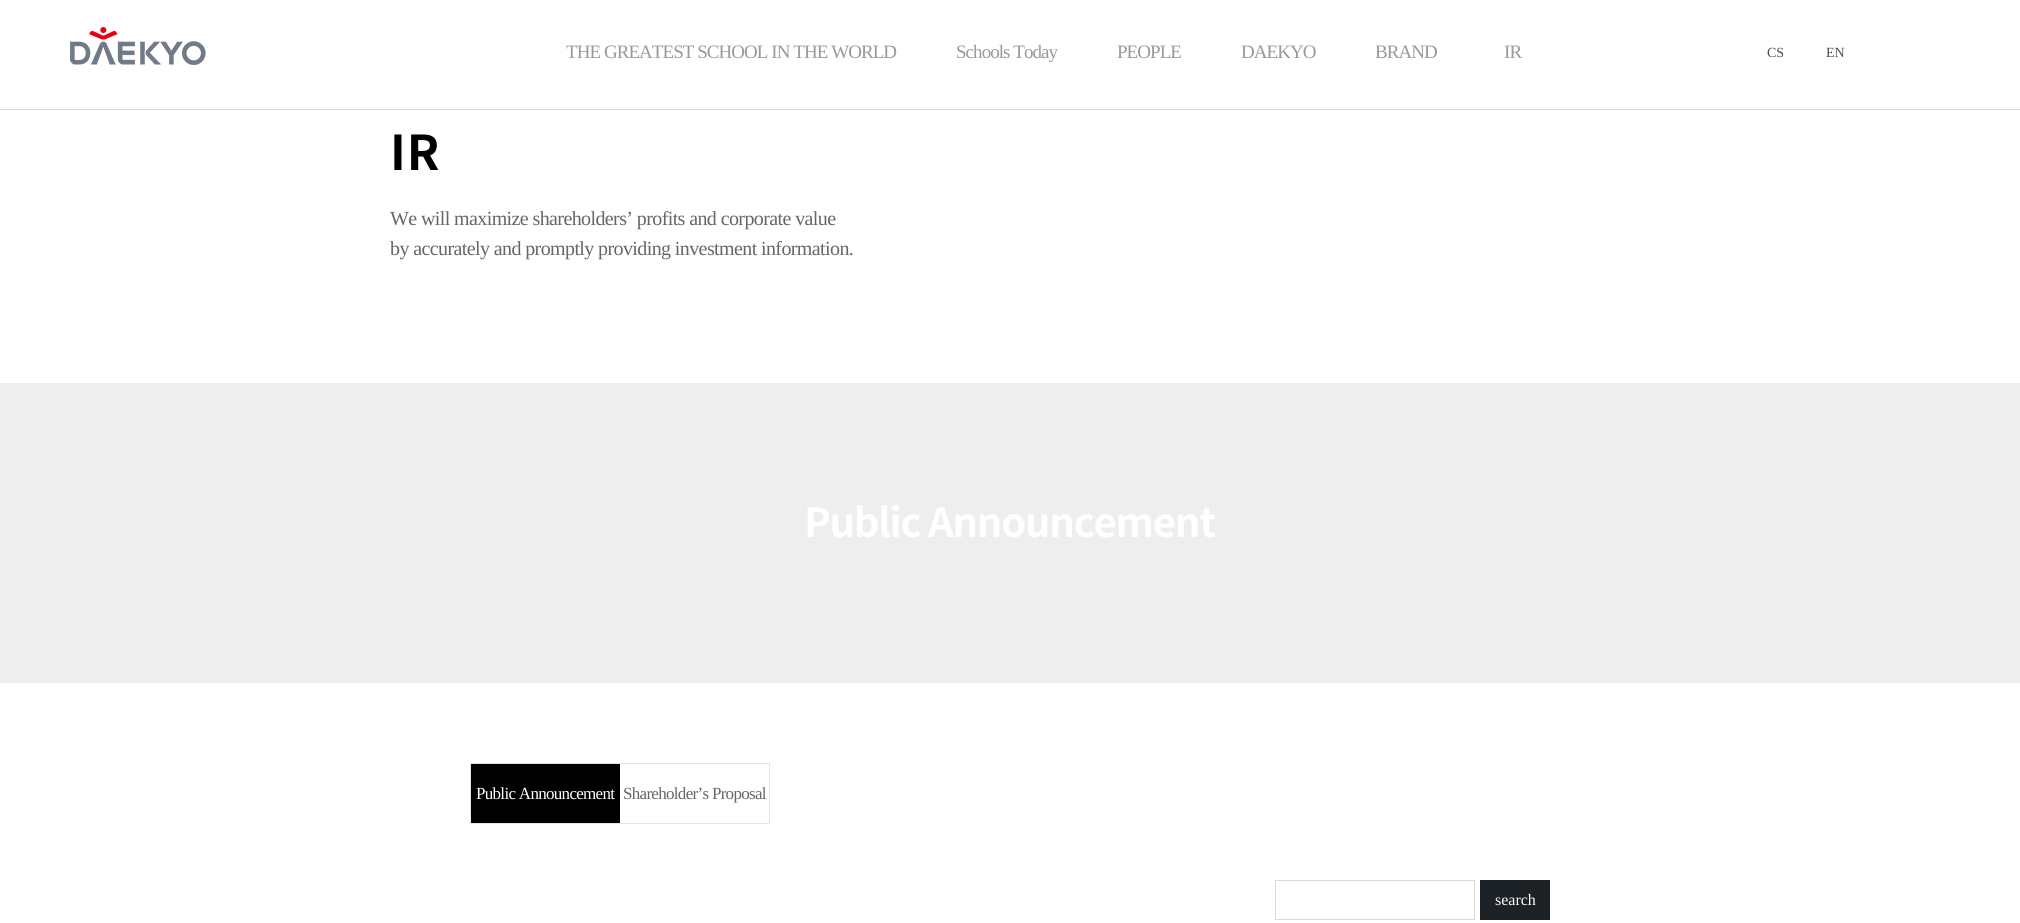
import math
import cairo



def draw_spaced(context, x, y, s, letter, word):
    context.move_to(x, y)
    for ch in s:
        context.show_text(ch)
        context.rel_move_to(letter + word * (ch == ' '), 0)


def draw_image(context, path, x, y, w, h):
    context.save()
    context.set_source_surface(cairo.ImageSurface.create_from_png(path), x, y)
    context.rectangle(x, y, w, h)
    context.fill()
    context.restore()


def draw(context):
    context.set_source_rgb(1, 1, 1)
    context.paint()
    draw_image(context, "images/1.png", 70, 27, 136, 38)
    context.set_source_rgb(218 / 255, 218 / 255, 218 / 255)
    context.rectangle(0, 109, 2020, 1)
    context.fill()
    context.set_source_rgb(238 / 255, 238 / 255, 238 / 255)
    context.rectangle(0, 383, 2020, 300)
    context.fill()
    context.rectangle(470.5, 763.5, 299, 60)
    context.set_source_rgb(229 / 255, 229 / 255, 229 / 255)
    context.set_line_width(1)
    context.stroke()
    context.set_source_rgb(0, 0, 0)
    context.rectangle(471, 764, 149, 59)
    context.fill()
    context.rectangle(1275.5, 880.5, 199, 39)
    context.set_source_rgb(218 / 255, 218 / 255, 218 / 255)
    context.stroke()
    context.set_source_rgb(28 / 255, 34 / 255, 37 / 255)
    context.rectangle(1480, 880, 70, 40)
    context.fill()
    context.select_font_face("Liberation Serif")
    context.set_font_size(19)
    context.set_source_rgb(153 / 255, 153 / 255, 153 / 255)
    draw_spaced(context, 566, 58, "THE GREATEST SCHOOL IN THE WORLD", -0.95, 0)
    draw_spaced(context, 956, 58, "Schools Today", -0.95, 0)
    draw_spaced(context, 1117, 58, "PEOPLE", -0.95, 0)
    draw_spaced(context, 1241, 58, "DAEKYO", -0.95, 0)
    draw_spaced(context, 1375, 58, "BRAND", -0.95, 0)
    draw_spaced(context, 1504, 58, "IR", -0.95, 0)
    context.set_font_size(14)
    context.set_source_rgb(77 / 255, 77 / 255, 77 / 255)
    context.move_to(1767, 57)
    context.show_text("CS")
    context.move_to(1826, 57)
    context.show_text("EN")
    context.select_font_face("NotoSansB", cairo.FontSlant.NORMAL, cairo.FontWeight.BOLD)
    context.set_font_size(48)
    context.set_source_rgb(0, 0, 0)
    draw_spaced(context, 390, 170, "IR", 1, 0)
    context.select_font_face("Liberation Serif")
    context.set_font_size(20)
    context.set_source_rgb(102 / 255, 102 / 255, 102 / 255)
    draw_spaced(context, 390, 225, "We will maximize shareholders’ profits and corporate value", -0.6, 0)
    draw_spaced(context, 390, 255, "by accurately and promptly providing investment information.", -0.6, 0)
    context.select_font_face("NotoSansB", cairo.FontSlant.NORMAL, cairo.FontWeight.BOLD)
    context.set_font_size(40)
    context.set_source_rgb(1, 1, 1)
    draw_spaced(context, 804, 537, "Public Announcement", -1.25, 0)
    context.select_font_face("Liberation Serif")
    context.set_font_size(17)
    draw_spaced(context, 476, 799, "Public Announcement", -0.7, 0)
    context.set_source_rgb(102 / 255, 102 / 255, 102 / 255)
    draw_spaced(context, 623, 799, "Shareholder’s Proposal", -0.7, 0)
    context.set_font_size(16)
    context.set_source_rgb(1, 1, 1)
    context.move_to(1495, 905)
    context.show_text("search")


surface = cairo.ImageSurface(cairo.Format.RGB24, 2020, 923)
context = cairo.Context(surface)
options = cairo.FontOptions()
options.set_hint_metrics(cairo.HintMetrics.OFF)
options.set_hint_style(cairo.HintStyle.NONE)
context.set_font_options(options)
context.set_miter_limit(4)
draw(context)
surface.write_to_png("out.png")
